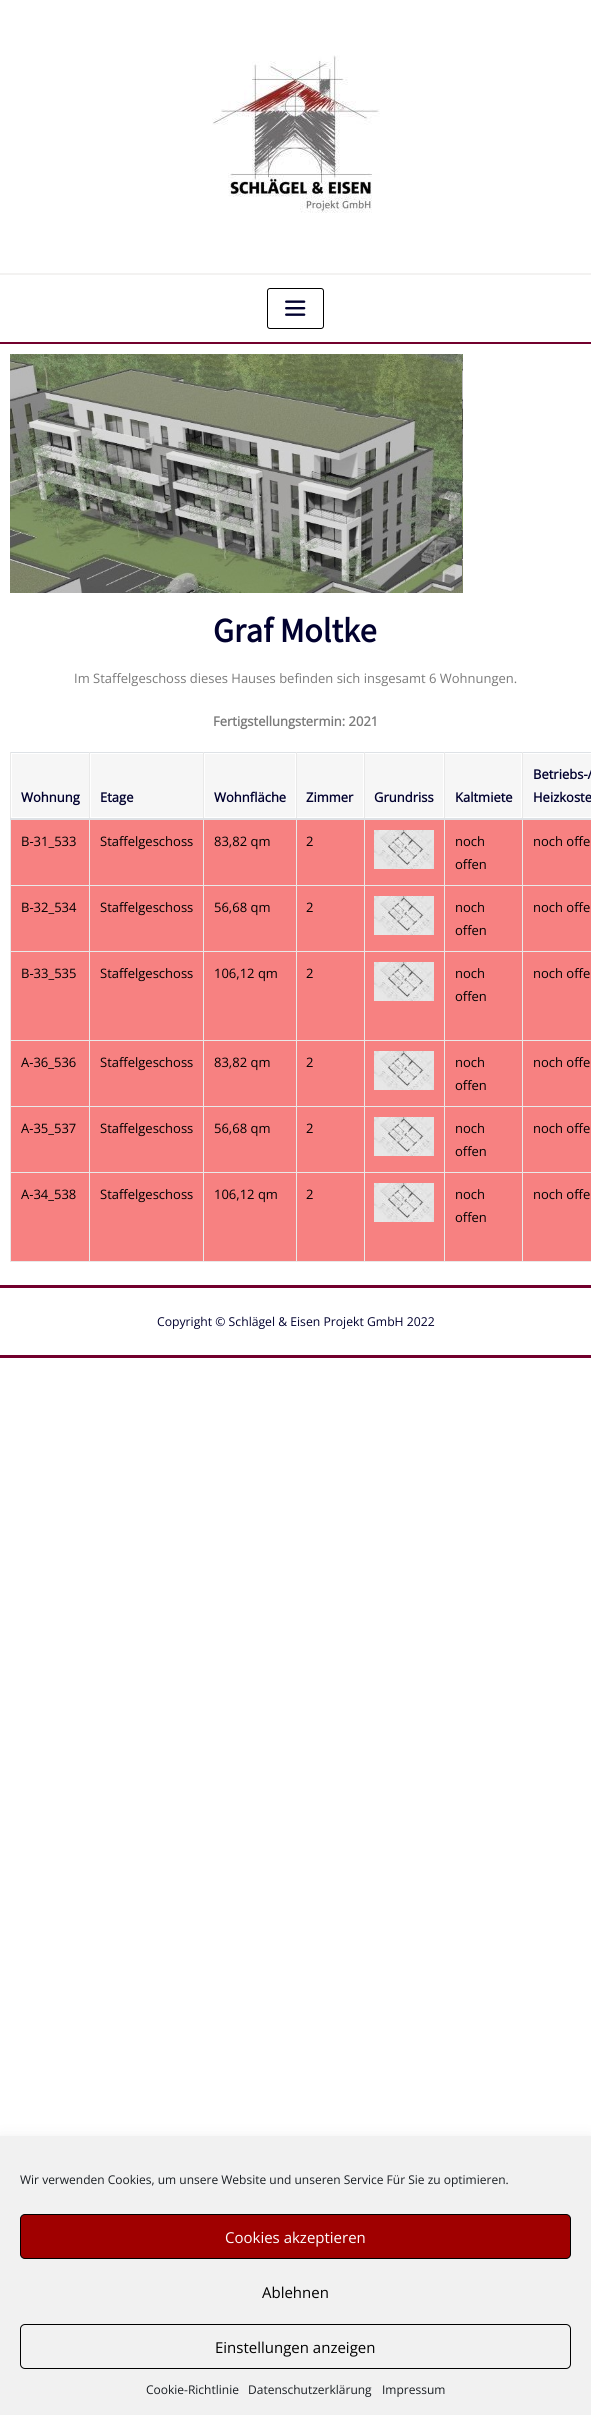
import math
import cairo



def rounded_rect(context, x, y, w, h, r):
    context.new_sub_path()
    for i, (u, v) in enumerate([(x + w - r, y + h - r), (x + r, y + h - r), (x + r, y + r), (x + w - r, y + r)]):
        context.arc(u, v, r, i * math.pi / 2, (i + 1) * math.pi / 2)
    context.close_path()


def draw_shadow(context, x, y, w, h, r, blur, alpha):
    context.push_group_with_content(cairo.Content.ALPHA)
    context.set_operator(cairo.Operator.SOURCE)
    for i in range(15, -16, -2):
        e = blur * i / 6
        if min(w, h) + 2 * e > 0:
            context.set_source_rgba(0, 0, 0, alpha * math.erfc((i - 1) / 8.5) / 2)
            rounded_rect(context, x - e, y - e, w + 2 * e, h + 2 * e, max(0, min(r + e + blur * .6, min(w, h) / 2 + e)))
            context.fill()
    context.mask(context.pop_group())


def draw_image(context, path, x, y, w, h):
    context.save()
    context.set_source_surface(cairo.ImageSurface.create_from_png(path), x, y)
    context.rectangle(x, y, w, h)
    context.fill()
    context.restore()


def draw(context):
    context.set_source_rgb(1, 1, 1)
    context.paint()
    draw_image(context, "images/1.png", 212, 55, 168, 158)
    context.set_source_rgb(243 / 255, 242 / 255, 241 / 255)
    context.rectangle(0, 273, 591, 2)
    context.fill()
    context.set_source_rgb(114 / 255, 0, 45 / 255)
    context.rectangle(0, 342, 591, 2)
    context.fill()
    rounded_rect(context, 267.5, 288.5, 56, 40, 2.5)
    context.set_source_rgb(0, 0, 0)
    context.set_line_width(1)
    context.stroke()
    draw_image(context, "images/2.png", 285, 300, 21, 16)
    draw_image(context, "images/3.png", 10, 354, 453, 239)
    context.set_source_rgb(233 / 255, 233 / 255, 233 / 255)
    context.rectangle(10, 1261, 581, 1)
    context.fill()
    context.set_source_rgb(246 / 255, 246 / 255, 246 / 255)
    context.rectangle(12, 754, 77, 63)
    context.fill()
    context.set_source_rgb(222 / 255, 226 / 255, 230 / 255)
    context.rectangle(10, 752, 581, 1)
    context.fill()
    context.set_source_rgb(247 / 255, 129 / 255, 129 / 255)
    context.rectangle(11, 820, 580, 65)
    context.fill()
    context.rectangle(11, 886, 580, 65)
    context.fill()
    context.rectangle(11, 952, 580, 88)
    context.fill()
    context.rectangle(11, 1041, 580, 65)
    context.fill()
    context.rectangle(11, 1107, 580, 65)
    context.fill()
    context.rectangle(11, 1173, 580, 88)
    context.fill()
    context.set_source_rgb(233 / 255, 233 / 255, 233 / 255)
    context.rectangle(522, 1172, 1, 90)
    context.fill()
    context.rectangle(522, 1172, 69, 1)
    context.fill()
    context.rectangle(522, 1106, 1, 67)
    context.fill()
    context.rectangle(522, 1106, 69, 1)
    context.fill()
    context.rectangle(522, 1040, 1, 67)
    context.fill()
    context.rectangle(522, 1040, 69, 1)
    context.fill()
    context.rectangle(522, 951, 1, 90)
    context.fill()
    context.rectangle(522, 951, 69, 1)
    context.fill()
    context.rectangle(522, 885, 1, 67)
    context.fill()
    context.rectangle(522, 885, 69, 1)
    context.fill()
    context.rectangle(522, 819, 1, 67)
    context.fill()
    context.rectangle(444, 1172, 1, 90)
    context.fill()
    context.rectangle(444, 1172, 79, 1)
    context.fill()
    context.rectangle(444, 1106, 1, 67)
    context.fill()
    context.rectangle(444, 1106, 79, 1)
    context.fill()
    context.rectangle(444, 1040, 1, 67)
    context.fill()
    context.rectangle(444, 1040, 79, 1)
    context.fill()
    context.rectangle(444, 951, 1, 90)
    context.fill()
    context.rectangle(444, 951, 79, 1)
    context.fill()
    context.rectangle(444, 885, 1, 67)
    context.fill()
    context.rectangle(444, 885, 79, 1)
    context.fill()
    context.rectangle(444, 819, 1, 67)
    context.fill()
    context.rectangle(364, 1172, 1, 90)
    context.fill()
    context.rectangle(364, 1172, 81, 1)
    context.fill()
    context.rectangle(364, 1106, 1, 67)
    context.fill()
    context.rectangle(364, 1106, 81, 1)
    context.fill()
    context.rectangle(364, 1040, 1, 67)
    context.fill()
    context.rectangle(364, 1040, 81, 1)
    context.fill()
    context.rectangle(364, 951, 1, 90)
    context.fill()
    context.rectangle(364, 951, 81, 1)
    context.fill()
    context.rectangle(364, 885, 1, 67)
    context.fill()
    context.rectangle(364, 885, 81, 1)
    context.fill()
    context.rectangle(364, 819, 1, 67)
    context.fill()
    context.rectangle(296, 1172, 1, 90)
    context.fill()
    context.rectangle(296, 1172, 69, 1)
    context.fill()
    context.rectangle(296, 1106, 1, 67)
    context.fill()
    context.rectangle(296, 1106, 69, 1)
    context.fill()
    context.rectangle(296, 1040, 1, 67)
    context.fill()
    context.rectangle(296, 1040, 69, 1)
    context.fill()
    context.rectangle(296, 951, 1, 90)
    context.fill()
    context.rectangle(296, 951, 69, 1)
    context.fill()
    context.rectangle(296, 885, 1, 67)
    context.fill()
    context.rectangle(296, 885, 69, 1)
    context.fill()
    context.rectangle(296, 819, 1, 67)
    context.fill()
    context.rectangle(203, 1172, 1, 90)
    context.fill()
    context.rectangle(203, 1172, 94, 1)
    context.fill()
    context.rectangle(203, 1106, 1, 67)
    context.fill()
    context.rectangle(203, 1106, 94, 1)
    context.fill()
    context.rectangle(203, 1040, 1, 67)
    context.fill()
    context.rectangle(203, 1040, 94, 1)
    context.fill()
    context.rectangle(203, 951, 1, 90)
    context.fill()
    context.rectangle(203, 951, 94, 1)
    context.fill()
    context.rectangle(203, 885, 1, 67)
    context.fill()
    context.rectangle(203, 885, 94, 1)
    context.fill()
    context.rectangle(203, 819, 1, 67)
    context.fill()
    context.rectangle(89, 1172, 1, 90)
    context.fill()
    context.rectangle(89, 1172, 115, 1)
    context.fill()
    context.rectangle(89, 1106, 1, 67)
    context.fill()
    context.rectangle(89, 1106, 115, 1)
    context.fill()
    context.rectangle(89, 1040, 1, 67)
    context.fill()
    context.rectangle(89, 1040, 115, 1)
    context.fill()
    context.rectangle(89, 951, 1, 90)
    context.fill()
    context.rectangle(89, 951, 115, 1)
    context.fill()
    context.rectangle(89, 885, 1, 67)
    context.fill()
    context.rectangle(89, 885, 115, 1)
    context.fill()
    context.rectangle(89, 819, 1, 67)
    context.fill()
    context.rectangle(89, 752, 1, 68)
    context.fill()
    context.rectangle(10, 1172, 1, 90)
    context.fill()
    context.rectangle(10, 1172, 80, 1)
    context.fill()
    context.rectangle(10, 1106, 1, 67)
    context.fill()
    context.rectangle(10, 1106, 80, 1)
    context.fill()
    context.rectangle(10, 1040, 1, 67)
    context.fill()
    context.rectangle(10, 1040, 80, 1)
    context.fill()
    context.rectangle(10, 951, 1, 90)
    context.fill()
    context.rectangle(10, 951, 80, 1)
    context.fill()
    context.rectangle(10, 885, 1, 67)
    context.fill()
    context.rectangle(10, 885, 80, 1)
    context.fill()
    context.rectangle(10, 819, 1, 67)
    context.fill()
    context.rectangle(10, 752, 1, 68)
    context.fill()
    context.set_source_rgb(246 / 255, 246 / 255, 246 / 255)
    context.rectangle(91, 754, 112, 63)
    context.fill()
    context.set_source_rgb(233 / 255, 233 / 255, 233 / 255)
    context.rectangle(203, 752, 1, 68)
    context.fill()
    context.set_source_rgb(246 / 255, 246 / 255, 246 / 255)
    context.rectangle(205, 754, 90, 63)
    context.fill()
    context.set_source_rgb(233 / 255, 233 / 255, 233 / 255)
    context.rectangle(296, 752, 1, 68)
    context.fill()
    context.set_source_rgb(246 / 255, 246 / 255, 246 / 255)
    context.rectangle(297, 754, 66, 63)
    context.fill()
    context.set_source_rgb(233 / 255, 233 / 255, 233 / 255)
    context.rectangle(364, 752, 1, 68)
    context.fill()
    context.set_source_rgb(246 / 255, 246 / 255, 246 / 255)
    context.rectangle(365, 754, 78, 63)
    context.fill()
    context.set_source_rgb(233 / 255, 233 / 255, 233 / 255)
    context.rectangle(444, 752, 1, 68)
    context.fill()
    context.set_source_rgb(246 / 255, 246 / 255, 246 / 255)
    context.rectangle(445, 754, 76, 63)
    context.fill()
    context.set_source_rgb(233 / 255, 233 / 255, 233 / 255)
    context.rectangle(522, 752, 1, 68)
    context.fill()
    context.set_source_rgb(246 / 255, 246 / 255, 246 / 255)
    context.rectangle(523, 754, 68, 63)
    context.fill()
    context.set_source_rgb(222 / 255, 226 / 255, 230 / 255)
    context.rectangle(10, 818, 581, 2)
    context.fill()
    draw_image(context, "images/4.png", 374, 830, 60, 39)
    draw_image(context, "images/4.png", 374, 896, 60, 39)
    draw_image(context, "images/4.png", 374, 962, 60, 39)
    draw_image(context, "images/4.png", 374, 1051, 60, 39)
    draw_image(context, "images/4.png", 374, 1117, 60, 39)
    draw_image(context, "images/4.png", 374, 1183, 60, 39)
    context.set_source_rgb(114 / 255, 0, 45 / 255)
    context.rectangle(0, 1285, 591, 3)
    context.fill()
    context.rectangle(0, 1355, 591, 3)
    context.fill()
    context.set_source_rgb(0, 0, 0)
    draw_shadow(context, 0, 2146, 591, 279, 0, 10, 0.19)
    context.set_source_rgb(241 / 255, 241 / 255, 241 / 255)
    context.rectangle(0, 2136, 591, 279)
    context.fill()
    context.set_source_rgb(160 / 255, 0, 0)
    rounded_rect(context, 20.5, 2214.5, 550, 44, 4.5)
    context.fill_preserve()
    context.set_source_rgb(0, 0, 0)
    context.stroke()
    rounded_rect(context, 20.5, 2324.5, 550, 44, 4.5)
    context.stroke()
    context.select_font_face("Source Sans Pro", cairo.FontSlant.NORMAL, cairo.FontWeight.BOLD)
    context.set_font_size(34)
    context.set_source_rgb(1 / 255, 1 / 255, 47 / 255)
    context.move_to(213, 642)
    context.show_text("Graf Moltke")
    context.select_font_face("Open Sans")
    context.set_font_size(13)
    context.set_source_rgb(122 / 255, 122 / 255, 122 / 255)
    context.move_to(74, 683)
    context.show_text("Im Staffelgeschoss dieses Hauses befinden sich insgesamt 6 Wohnungen.")
    context.select_font_face("Open Sans", cairo.FontSlant.NORMAL, cairo.FontWeight.BOLD)
    context.move_to(213, 726)
    context.show_text("Fertigstellungstermin: 2021")
    context.set_source_rgb(1 / 255, 1 / 255, 47 / 255)
    context.move_to(21, 802)
    context.show_text("Wohnung")
    context.move_to(100, 802)
    context.show_text("Etage")
    context.move_to(214, 802)
    context.show_text("Wohnfläche")
    context.move_to(306, 802)
    context.show_text("Zimmer")
    context.move_to(374, 802)
    context.show_text("Grundriss")
    context.move_to(455, 802)
    context.show_text("Kaltmiete")
    context.move_to(533, 779)
    context.show_text("Betriebs-/")
    context.move_to(533, 802)
    context.show_text("Heizkoste")
    context.select_font_face("Open Sans")
    context.set_source_rgb(0, 0, 0)
    context.move_to(21, 846)
    context.show_text("B-31_533")
    context.move_to(100, 846)
    context.show_text("Staffelgeschoss")
    context.move_to(214, 846)
    context.show_text("83,82 qm")
    context.move_to(306, 846)
    context.show_text("2")
    context.move_to(455, 846)
    context.show_text("noch")
    context.move_to(455, 869)
    context.show_text("offen")
    context.move_to(533, 846)
    context.show_text("noch offe")
    context.move_to(21, 912)
    context.show_text("B-32_534")
    context.move_to(100, 912)
    context.show_text("Staffelgeschoss")
    context.move_to(214, 912)
    context.show_text("56,68 qm")
    context.move_to(306, 912)
    context.show_text("2")
    context.move_to(455, 912)
    context.show_text("noch")
    context.move_to(455, 935)
    context.show_text("offen")
    context.move_to(533, 912)
    context.show_text("noch offe")
    context.move_to(21, 978)
    context.show_text("B-33_535")
    context.move_to(100, 978)
    context.show_text("Staffelgeschoss")
    context.move_to(214, 978)
    context.show_text("106,12 qm")
    context.move_to(306, 978)
    context.show_text("2")
    context.move_to(455, 978)
    context.show_text("noch")
    context.move_to(455, 1001)
    context.show_text("offen")
    context.move_to(533, 978)
    context.show_text("noch offe")
    context.move_to(21, 1067)
    context.show_text("A-36_536")
    context.move_to(100, 1067)
    context.show_text("Staffelgeschoss")
    context.move_to(214, 1067)
    context.show_text("83,82 qm")
    context.move_to(306, 1067)
    context.show_text("2")
    context.move_to(455, 1067)
    context.show_text("noch")
    context.move_to(455, 1090)
    context.show_text("offen")
    context.move_to(533, 1067)
    context.show_text("noch offe")
    context.move_to(21, 1133)
    context.show_text("A-35_537")
    context.move_to(100, 1133)
    context.show_text("Staffelgeschoss")
    context.move_to(214, 1133)
    context.show_text("56,68 qm")
    context.move_to(306, 1133)
    context.show_text("2")
    context.move_to(455, 1133)
    context.show_text("noch")
    context.move_to(455, 1156)
    context.show_text("offen")
    context.move_to(533, 1133)
    context.show_text("noch offe")
    context.move_to(21, 1199)
    context.show_text("A-34_538")
    context.move_to(100, 1199)
    context.show_text("Staffelgeschoss")
    context.move_to(214, 1199)
    context.show_text("106,12 qm")
    context.move_to(306, 1199)
    context.show_text("2")
    context.move_to(455, 1199)
    context.show_text("noch")
    context.move_to(455, 1222)
    context.show_text("offen")
    context.move_to(533, 1199)
    context.show_text("noch offe")
    context.set_font_size(12.2)
    context.set_source_rgb(1 / 255, 1 / 255, 47 / 255)
    context.move_to(157, 1326)
    context.show_text("Copyright © Schlägel & Eisen Projekt GmbH 2022")
    context.set_font_size(12)
    context.set_source_rgb(25 / 255, 30 / 255, 35 / 255)
    context.move_to(20, 2184)
    context.show_text("Wir verwenden Cookies, um unsere Website und unseren Service Für Sie zu optimieren.")
    context.set_font_size(15)
    context.set_source_rgb(1, 1, 1)
    context.move_to(225, 2243)
    context.show_text("Cookies akzeptieren")
    context.set_source_rgb(0, 0, 0)
    context.move_to(262, 2298)
    context.show_text("Ablehnen")
    context.move_to(215, 2353)
    context.show_text("Einstellungen anzeigen")
    context.set_font_size(12)
    context.set_source_rgb(25 / 255, 30 / 255, 35 / 255)
    context.move_to(146, 2394)
    context.show_text("Cookie-Richtlinie")
    context.move_to(248, 2394)
    context.show_text("Datenschutzerklärung")
    context.move_to(382, 2394)
    context.show_text("Impressum")


surface = cairo.ImageSurface(cairo.Format.RGB24, 591, 2415)
context = cairo.Context(surface)
options = cairo.FontOptions()
options.set_hint_metrics(cairo.HintMetrics.OFF)
options.set_hint_style(cairo.HintStyle.NONE)
context.set_font_options(options)
context.set_miter_limit(4)
draw(context)
surface.write_to_png("out.png")
